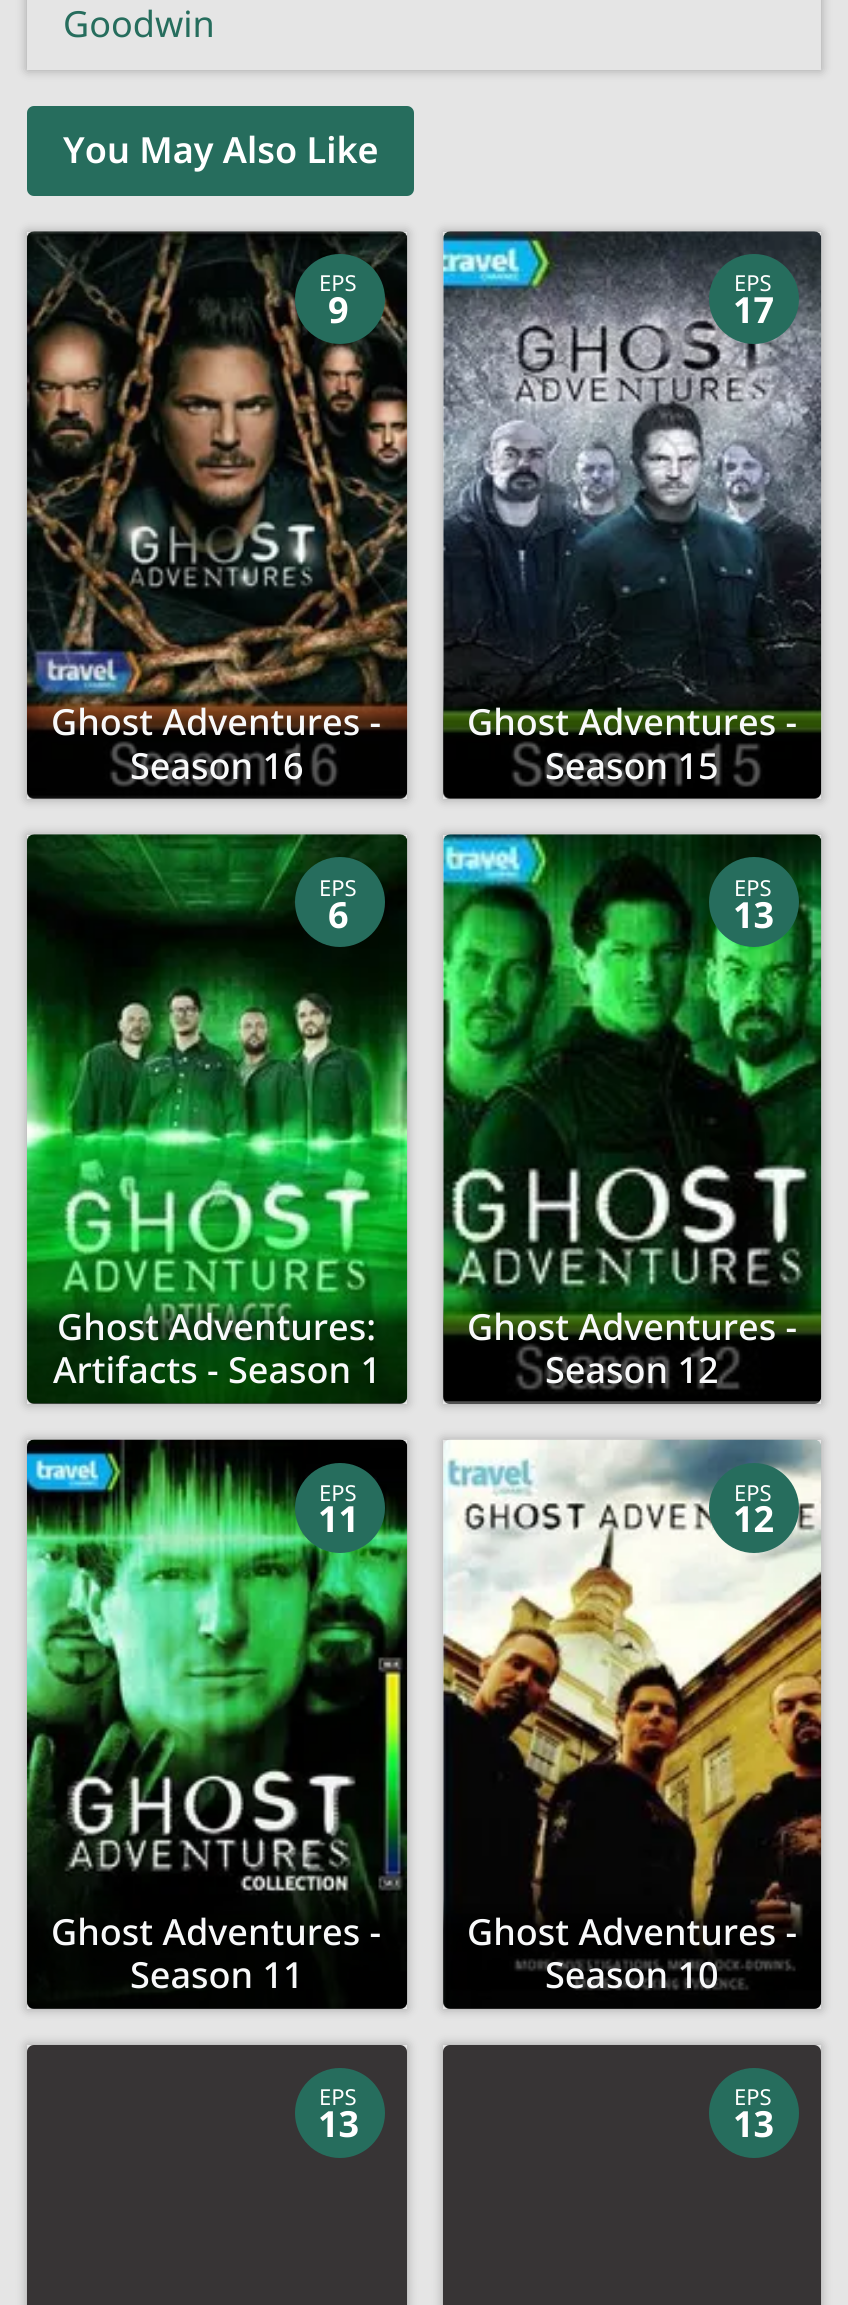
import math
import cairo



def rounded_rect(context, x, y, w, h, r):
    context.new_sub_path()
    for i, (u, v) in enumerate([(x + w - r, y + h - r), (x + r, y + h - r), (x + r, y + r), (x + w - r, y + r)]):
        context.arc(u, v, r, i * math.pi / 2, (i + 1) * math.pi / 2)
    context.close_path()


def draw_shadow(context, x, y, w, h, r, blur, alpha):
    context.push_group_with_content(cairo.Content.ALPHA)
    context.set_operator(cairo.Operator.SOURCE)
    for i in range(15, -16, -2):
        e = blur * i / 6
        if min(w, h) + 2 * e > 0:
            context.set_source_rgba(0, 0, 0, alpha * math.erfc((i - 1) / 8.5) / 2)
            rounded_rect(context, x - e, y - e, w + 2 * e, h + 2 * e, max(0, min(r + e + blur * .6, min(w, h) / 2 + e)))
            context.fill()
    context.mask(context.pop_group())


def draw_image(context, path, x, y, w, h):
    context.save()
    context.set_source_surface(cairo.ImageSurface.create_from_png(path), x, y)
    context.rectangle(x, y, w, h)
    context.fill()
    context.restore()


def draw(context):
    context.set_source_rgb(229 / 255, 229 / 255, 229 / 255)
    context.paint()
    context.save()
    context.set_fill_rule(cairo.FillRule.EVEN_ODD)
    context.new_path()
    context.move_to(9, 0)
    context.line_to(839, 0)
    context.line_to(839, 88)
    context.line_to(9, 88)
    context.close_path()
    context.move_to(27, -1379)
    context.line_to(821, -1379)
    context.line_to(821, 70)
    context.line_to(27, 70)
    context.close_path()
    context.clip()
    context.set_source_rgb(0, 0, 0)
    draw_shadow(context, 27, -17, 794, 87, 0, 5.5, 0.3)
    context.restore()
    context.set_source_rgb(38 / 255, 109 / 255, 93 / 255)
    rounded_rect(context, 27, 106, 387, 90, 7)
    context.fill()
    context.save()
    context.set_fill_rule(cairo.FillRule.EVEN_ODD)
    context.new_path()
    context.move_to(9, 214)
    context.line_to(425, 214)
    context.line_to(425, 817)
    context.line_to(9, 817)
    context.close_path()
    context.move_to(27, 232)
    context.line_to(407, 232)
    context.line_to(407, 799)
    context.line_to(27, 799)
    context.close_path()
    context.clip()
    context.set_source_rgb(0, 0, 0)
    draw_shadow(context, 27, 232, 380, 567, 0, 5.5, 0.3)
    context.restore()
    draw_image(context, "images/1.png", 27, 231, 381, 568)
    context.arc(340, 299, 45, 0, 2 * math.pi)
    context.fill()
    gradient = cairo.LinearGradient(217, 691, 217, 799)
    gradient.add_color_stop_rgba(0, 0, 0, 0, 0)
    gradient.add_color_stop_rgba(0.28, 0, 0, 0, 0.65)
    gradient.add_color_stop_rgba(1, 0, 0, 0, 0.65)
    context.set_source(gradient)
    context.new_path()
    context.move_to(27, 691)
    context.line_to(407, 691)
    context.line_to(407, 792)
    context.curve_to(407, 796, 404, 799, 400, 799)
    context.line_to(34, 799)
    context.curve_to(30, 799, 27, 796, 27, 792)
    context.close_path()
    context.fill()
    context.save()
    context.set_fill_rule(cairo.FillRule.EVEN_ODD)
    context.new_path()
    context.move_to(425, 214)
    context.line_to(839, 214)
    context.line_to(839, 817)
    context.line_to(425, 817)
    context.close_path()
    context.move_to(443, 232)
    context.line_to(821, 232)
    context.line_to(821, 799)
    context.line_to(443, 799)
    context.close_path()
    context.clip()
    context.set_source_rgb(0, 0, 0)
    draw_shadow(context, 443, 232, 378, 567, 0, 5.5, 0.3)
    context.restore()
    draw_image(context, "images/2.png", 443, 231, 379, 568)
    context.set_source_rgb(38 / 255, 109 / 255, 93 / 255)
    context.arc(754, 299, 45, 0, 2 * math.pi)
    context.fill()
    gradient = cairo.LinearGradient(632, 691, 632, 799)
    gradient.add_color_stop_rgba(0, 0, 0, 0, 0)
    gradient.add_color_stop_rgba(0.28, 0, 0, 0, 0.65)
    gradient.add_color_stop_rgba(1, 0, 0, 0, 0.65)
    context.set_source(gradient)
    context.new_path()
    context.move_to(443, 691)
    context.line_to(821, 691)
    context.line_to(821, 792)
    context.curve_to(821, 796, 818, 799, 814, 799)
    context.line_to(450, 799)
    context.curve_to(446, 799, 443, 796, 443, 792)
    context.close_path()
    context.fill()
    context.save()
    context.set_fill_rule(cairo.FillRule.EVEN_ODD)
    context.new_path()
    context.move_to(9, 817)
    context.line_to(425, 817)
    context.line_to(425, 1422)
    context.line_to(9, 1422)
    context.close_path()
    context.move_to(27, 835)
    context.line_to(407, 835)
    context.line_to(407, 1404)
    context.line_to(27, 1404)
    context.close_path()
    context.clip()
    context.set_source_rgb(0, 0, 0)
    draw_shadow(context, 27, 835, 380, 569, 0, 5.5, 0.3)
    context.restore()
    draw_image(context, "images/3.png", 27, 834, 381, 570)
    context.set_source_rgb(38 / 255, 109 / 255, 93 / 255)
    context.arc(340, 902, 45, 0, 2 * math.pi)
    context.fill()
    gradient = cairo.LinearGradient(217, 1296, 217, 1404)
    gradient.add_color_stop_rgba(0, 0, 0, 0, 0)
    gradient.add_color_stop_rgba(0.28, 0, 0, 0, 0.65)
    gradient.add_color_stop_rgba(1, 0, 0, 0, 0.65)
    context.set_source(gradient)
    context.new_path()
    context.move_to(27, 1296)
    context.line_to(407, 1296)
    context.line_to(407, 1397)
    context.curve_to(407, 1401, 404, 1404, 400, 1404)
    context.line_to(34, 1404)
    context.curve_to(30, 1404, 27, 1401, 27, 1397)
    context.close_path()
    context.fill()
    context.save()
    context.set_fill_rule(cairo.FillRule.EVEN_ODD)
    context.new_path()
    context.move_to(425, 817)
    context.line_to(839, 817)
    context.line_to(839, 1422)
    context.line_to(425, 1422)
    context.close_path()
    context.move_to(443, 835)
    context.line_to(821, 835)
    context.line_to(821, 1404)
    context.line_to(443, 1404)
    context.close_path()
    context.clip()
    context.set_source_rgb(0, 0, 0)
    draw_shadow(context, 443, 835, 378, 569, 0, 5.5, 0.3)
    context.restore()
    draw_image(context, "images/4.png", 443, 834, 379, 568)
    context.set_source_rgb(38 / 255, 109 / 255, 93 / 255)
    context.arc(754, 902, 45, 0, 2 * math.pi)
    context.fill()
    gradient = cairo.LinearGradient(632, 1296, 632, 1404)
    gradient.add_color_stop_rgba(0, 0, 0, 0, 0)
    gradient.add_color_stop_rgba(0.28, 0, 0, 0, 0.65)
    gradient.add_color_stop_rgba(1, 0, 0, 0, 0.65)
    context.set_source(gradient)
    context.new_path()
    context.move_to(443, 1296)
    context.line_to(821, 1296)
    context.line_to(821, 1397)
    context.curve_to(821, 1401, 818, 1404, 814, 1404)
    context.line_to(450, 1404)
    context.curve_to(446, 1404, 443, 1401, 443, 1397)
    context.close_path()
    context.fill()
    context.save()
    context.set_fill_rule(cairo.FillRule.EVEN_ODD)
    context.new_path()
    context.move_to(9, 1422)
    context.line_to(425, 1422)
    context.line_to(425, 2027)
    context.line_to(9, 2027)
    context.close_path()
    context.move_to(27, 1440)
    context.line_to(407, 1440)
    context.line_to(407, 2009)
    context.line_to(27, 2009)
    context.close_path()
    context.clip()
    context.set_source_rgb(0, 0, 0)
    draw_shadow(context, 27, 1440, 380, 569, 0, 5.5, 0.3)
    context.restore()
    draw_image(context, "images/5.png", 27, 1439, 381, 570)
    context.set_source_rgb(38 / 255, 109 / 255, 93 / 255)
    context.arc(340, 1508, 45, 0, 2 * math.pi)
    context.fill()
    gradient = cairo.LinearGradient(217, 1899, 217, 2009)
    gradient.add_color_stop_rgba(0, 0, 0, 0, 0)
    gradient.add_color_stop_rgba(0.28, 0, 0, 0, 0.65)
    gradient.add_color_stop_rgba(1, 0, 0, 0, 0.65)
    context.set_source(gradient)
    context.new_path()
    context.move_to(27, 1899)
    context.line_to(407, 1899)
    context.line_to(407, 2002)
    context.curve_to(407, 2006, 404, 2009, 400, 2009)
    context.line_to(34, 2009)
    context.curve_to(30, 2009, 27, 2006, 27, 2002)
    context.close_path()
    context.fill()
    context.save()
    context.set_fill_rule(cairo.FillRule.EVEN_ODD)
    context.new_path()
    context.move_to(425, 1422)
    context.line_to(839, 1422)
    context.line_to(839, 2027)
    context.line_to(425, 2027)
    context.close_path()
    context.move_to(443, 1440)
    context.line_to(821, 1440)
    context.line_to(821, 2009)
    context.line_to(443, 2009)
    context.close_path()
    context.clip()
    context.set_source_rgb(0, 0, 0)
    draw_shadow(context, 443, 1440, 378, 569, 0, 5.5, 0.3)
    context.restore()
    draw_image(context, "images/6.png", 443, 1439, 379, 570)
    context.set_source_rgb(38 / 255, 109 / 255, 93 / 255)
    context.arc(754, 1508, 45, 0, 2 * math.pi)
    context.fill()
    gradient = cairo.LinearGradient(632, 1899, 632, 2009)
    gradient.add_color_stop_rgba(0, 0, 0, 0, 0)
    gradient.add_color_stop_rgba(0.28, 0, 0, 0, 0.65)
    gradient.add_color_stop_rgba(1, 0, 0, 0, 0.65)
    context.set_source(gradient)
    context.new_path()
    context.move_to(443, 1899)
    context.line_to(821, 1899)
    context.line_to(821, 2002)
    context.curve_to(821, 2006, 818, 2009, 814, 2009)
    context.line_to(450, 2009)
    context.curve_to(446, 2009, 443, 2006, 443, 2002)
    context.close_path()
    context.fill()
    context.save()
    context.set_fill_rule(cairo.FillRule.EVEN_ODD)
    context.new_path()
    context.move_to(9, 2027)
    context.line_to(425, 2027)
    context.line_to(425, 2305)
    context.line_to(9, 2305)
    context.close_path()
    context.move_to(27, 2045)
    context.line_to(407, 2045)
    context.line_to(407, 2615)
    context.line_to(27, 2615)
    context.close_path()
    context.clip()
    context.set_source_rgb(0, 0, 0)
    draw_shadow(context, 27, 2045, 380, 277, 0, 5.5, 0.3)
    context.restore()
    context.set_source_rgb(55 / 255, 52 / 255, 53 / 255)
    rounded_rect(context, 27, 2045, 380, 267, 7)
    context.fill()
    context.set_source_rgb(38 / 255, 109 / 255, 93 / 255)
    context.arc(340, 2113, 45, 0, 2 * math.pi)
    context.fill()
    context.save()
    context.set_fill_rule(cairo.FillRule.EVEN_ODD)
    context.new_path()
    context.move_to(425, 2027)
    context.line_to(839, 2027)
    context.line_to(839, 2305)
    context.line_to(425, 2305)
    context.close_path()
    context.move_to(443, 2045)
    context.line_to(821, 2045)
    context.line_to(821, 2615)
    context.line_to(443, 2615)
    context.close_path()
    context.clip()
    context.set_source_rgb(0, 0, 0)
    draw_shadow(context, 443, 2045, 378, 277, 0, 5.5, 0.3)
    context.restore()
    context.set_source_rgb(55 / 255, 52 / 255, 53 / 255)
    rounded_rect(context, 443, 2045, 378, 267, 7)
    context.fill()
    context.set_source_rgb(38 / 255, 109 / 255, 93 / 255)
    context.arc(754, 2113, 45, 0, 2 * math.pi)
    context.fill()
    context.select_font_face("Noto Sans")
    context.set_font_size(36)
    context.move_to(63, 37)
    context.show_text("Goodwin")
    context.select_font_face("Noto Sans SemiBold")
    context.set_source_rgb(1, 1, 1)
    context.move_to(63, 163)
    context.show_text("You May Also Like")
    context.select_font_face("Noto Sans")
    context.set_font_size(22)
    context.move_to(319, 291)
    context.show_text("EPS")
    context.select_font_face("Noto Sans", cairo.FontSlant.NORMAL, cairo.FontWeight.BOLD)
    context.set_font_size(36)
    context.move_to(328, 323)
    context.show_text("9")
    context.select_font_face("Noto Sans Medium")
    context.set_source_rgb(248 / 255, 249 / 255, 250 / 255)
    context.move_to(51, 735)
    context.show_text("Ghost Adventures -")
    context.move_to(130, 779)
    context.show_text("Season 16")
    context.select_font_face("Noto Sans")
    context.set_font_size(22)
    context.set_source_rgb(1, 1, 1)
    context.move_to(734, 291)
    context.show_text("EPS")
    context.select_font_face("Noto Sans", cairo.FontSlant.NORMAL, cairo.FontWeight.BOLD)
    context.set_font_size(36)
    context.move_to(733, 323)
    context.show_text("17")
    context.select_font_face("Noto Sans Medium")
    context.set_source_rgb(248 / 255, 249 / 255, 250 / 255)
    context.move_to(467, 735)
    context.show_text("Ghost Adventures -")
    context.move_to(545, 779)
    context.show_text("Season 15")
    context.select_font_face("Noto Sans")
    context.set_font_size(22)
    context.set_source_rgb(1, 1, 1)
    context.move_to(319, 896)
    context.show_text("EPS")
    context.select_font_face("Noto Sans", cairo.FontSlant.NORMAL, cairo.FontWeight.BOLD)
    context.set_font_size(36)
    context.move_to(328, 928)
    context.show_text("6")
    context.select_font_face("Noto Sans Medium")
    context.set_source_rgb(248 / 255, 249 / 255, 250 / 255)
    context.move_to(57, 1340)
    context.show_text("Ghost Adventures:")
    context.move_to(53, 1383)
    context.show_text("Artifacts - Season 1")
    context.select_font_face("Noto Sans")
    context.set_font_size(22)
    context.set_source_rgb(1, 1, 1)
    context.move_to(734, 896)
    context.show_text("EPS")
    context.select_font_face("Noto Sans", cairo.FontSlant.NORMAL, cairo.FontWeight.BOLD)
    context.set_font_size(36)
    context.move_to(733, 928)
    context.show_text("13")
    context.select_font_face("Noto Sans Medium")
    context.set_source_rgb(248 / 255, 249 / 255, 250 / 255)
    context.move_to(467, 1340)
    context.show_text("Ghost Adventures -")
    context.move_to(545, 1383)
    context.show_text("Season 12")
    context.select_font_face("Noto Sans")
    context.set_font_size(22)
    context.set_source_rgb(1, 1, 1)
    context.move_to(319, 1501)
    context.show_text("EPS")
    context.select_font_face("Noto Sans", cairo.FontSlant.NORMAL, cairo.FontWeight.BOLD)
    context.set_font_size(36)
    context.move_to(318, 1532)
    context.show_text("11")
    context.select_font_face("Noto Sans Medium")
    context.set_source_rgb(248 / 255, 249 / 255, 250 / 255)
    context.move_to(51, 1945)
    context.show_text("Ghost Adventures -")
    context.move_to(130, 1988)
    context.show_text("Season 11")
    context.select_font_face("Noto Sans")
    context.set_font_size(22)
    context.set_source_rgb(1, 1, 1)
    context.move_to(734, 1501)
    context.show_text("EPS")
    context.select_font_face("Noto Sans", cairo.FontSlant.NORMAL, cairo.FontWeight.BOLD)
    context.set_font_size(36)
    context.move_to(733, 1532)
    context.show_text("12")
    context.select_font_face("Noto Sans Medium")
    context.set_source_rgb(248 / 255, 249 / 255, 250 / 255)
    context.move_to(467, 1945)
    context.show_text("Ghost Adventures -")
    context.move_to(545, 1988)
    context.show_text("Season 10")
    context.select_font_face("Noto Sans")
    context.set_font_size(22)
    context.set_source_rgb(1, 1, 1)
    context.move_to(319, 2105)
    context.show_text("EPS")
    context.select_font_face("Noto Sans", cairo.FontSlant.NORMAL, cairo.FontWeight.BOLD)
    context.set_font_size(36)
    context.move_to(318, 2137)
    context.show_text("13")
    context.select_font_face("Noto Sans")
    context.set_font_size(22)
    context.move_to(734, 2105)
    context.show_text("EPS")
    context.select_font_face("Noto Sans", cairo.FontSlant.NORMAL, cairo.FontWeight.BOLD)
    context.set_font_size(36)
    context.move_to(733, 2137)
    context.show_text("13")


surface = cairo.ImageSurface(cairo.Format.RGB24, 848, 2305)
context = cairo.Context(surface)
options = cairo.FontOptions()
options.set_hint_metrics(cairo.HintMetrics.OFF)
options.set_hint_style(cairo.HintStyle.NONE)
context.set_font_options(options)
context.set_miter_limit(4)
draw(context)
surface.write_to_png("out.png")
